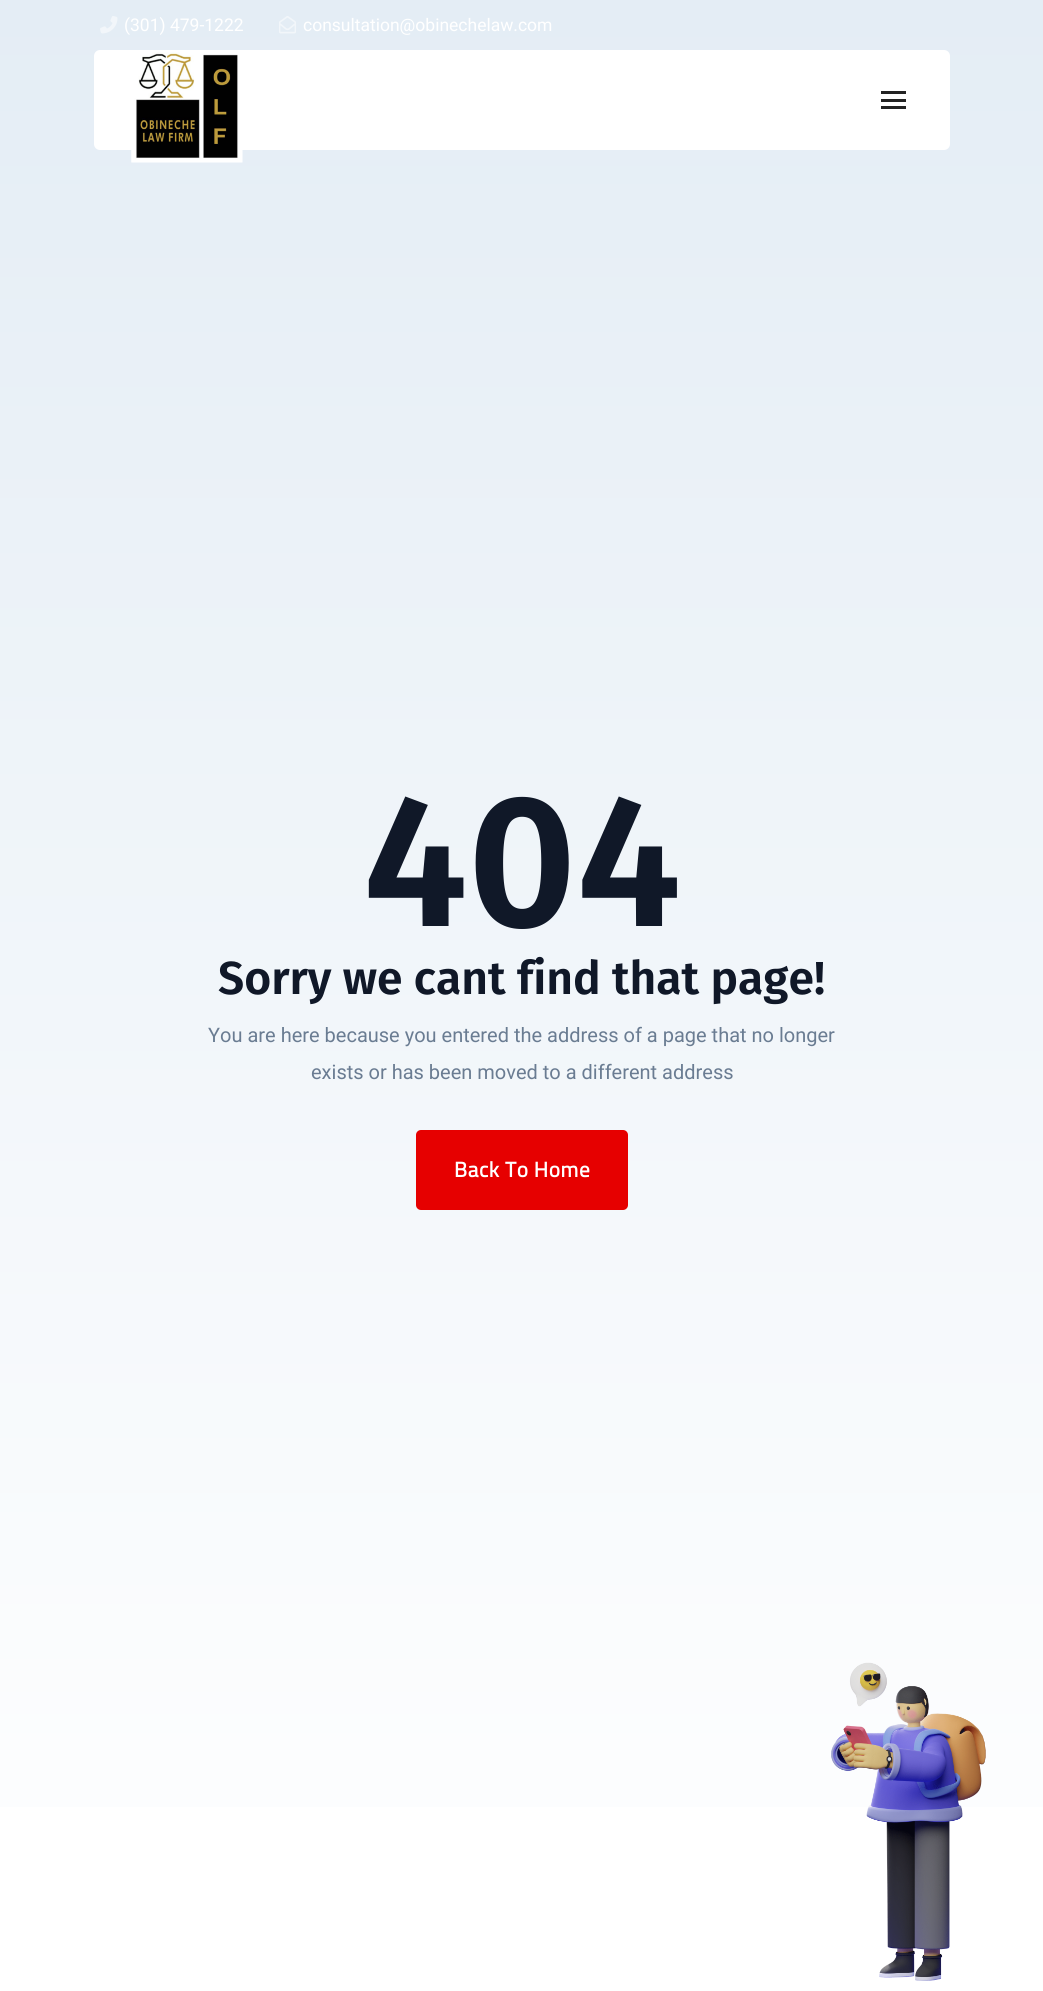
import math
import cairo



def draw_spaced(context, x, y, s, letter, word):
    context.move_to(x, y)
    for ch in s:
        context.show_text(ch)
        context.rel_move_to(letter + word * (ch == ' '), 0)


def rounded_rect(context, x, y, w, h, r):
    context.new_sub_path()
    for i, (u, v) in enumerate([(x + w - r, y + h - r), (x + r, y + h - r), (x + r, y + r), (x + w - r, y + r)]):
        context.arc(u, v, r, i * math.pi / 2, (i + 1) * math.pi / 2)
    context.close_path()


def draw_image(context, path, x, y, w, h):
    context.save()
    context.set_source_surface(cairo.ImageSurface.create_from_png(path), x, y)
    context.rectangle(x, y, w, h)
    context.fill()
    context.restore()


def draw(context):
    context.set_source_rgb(1, 1, 1)
    context.paint()
    gradient = cairo.LinearGradient(522, 0, 522, 1991)
    gradient.add_color_stop_rgba(0, 228 / 255, 237 / 255, 245 / 255, 1)
    gradient.add_color_stop_rgba(1, 1, 1, 1, 1)
    context.set_source(gradient)
    context.rectangle(0, 0, 1043, 1807)
    context.fill()
    draw_image(context, "images/1.png", 100, 16, 18, 18)
    draw_image(context, "images/2.png", 279, 16, 17, 18)
    context.set_source_rgb(1, 1, 1)
    rounded_rect(context, 94, 50, 856, 100, 6)
    context.fill()
    draw_image(context, "images/3.png", 131, 52, 112, 111)
    context.set_source_rgb(35 / 255, 35 / 255, 35 / 255)
    context.rectangle(881, 91, 25, 3)
    context.fill()
    context.rectangle(881, 99, 25, 3)
    context.fill()
    context.rectangle(881, 106, 25, 3)
    context.fill()
    context.set_source_rgb(230 / 255, 0, 0)
    rounded_rect(context, 416, 1130, 212, 80, 5)
    context.fill()
    draw_image(context, "images/4.png", 831, 1662, 155, 319)
    context.select_font_face("Roboto")
    context.set_font_size(17.5)
    context.set_source_rgb(1, 1, 1)
    context.move_to(124, 31)
    context.show_text("(301) 479-1222")
    context.move_to(303, 31)
    context.show_text("consultation@obinechelaw.com")
    context.select_font_face("Fira Sans SemiBold")
    context.set_font_size(188)
    context.set_source_rgb(16 / 255, 24 / 255, 40 / 255)
    context.move_to(363, 926)
    context.show_text("404")
    context.set_font_size(46.25)
    context.move_to(218, 994)
    context.show_text("Sorry we cant find that page!")
    context.select_font_face("Roboto")
    context.set_font_size(20)
    context.set_source_rgb(106 / 255, 124 / 255, 146 / 255)
    context.move_to(208, 1042)
    context.show_text("You are here because you entered the address of a page that no longer")
    context.move_to(311, 1079)
    context.show_text("exists or has been moved to a different address")
    context.select_font_face("Cairo", cairo.FontSlant.NORMAL, cairo.FontWeight.BOLD)
    context.set_font_size(21.25)
    context.set_source_rgb(1, 1, 1)
    draw_spaced(context, 454, 1177, "Back To Home", 0.6, 0)


surface = cairo.ImageSurface(cairo.Format.RGB24, 1043, 1991)
context = cairo.Context(surface)
options = cairo.FontOptions()
options.set_hint_metrics(cairo.HintMetrics.OFF)
options.set_hint_style(cairo.HintStyle.NONE)
context.set_font_options(options)
context.set_miter_limit(4)
draw(context)
surface.write_to_png("out.png")
